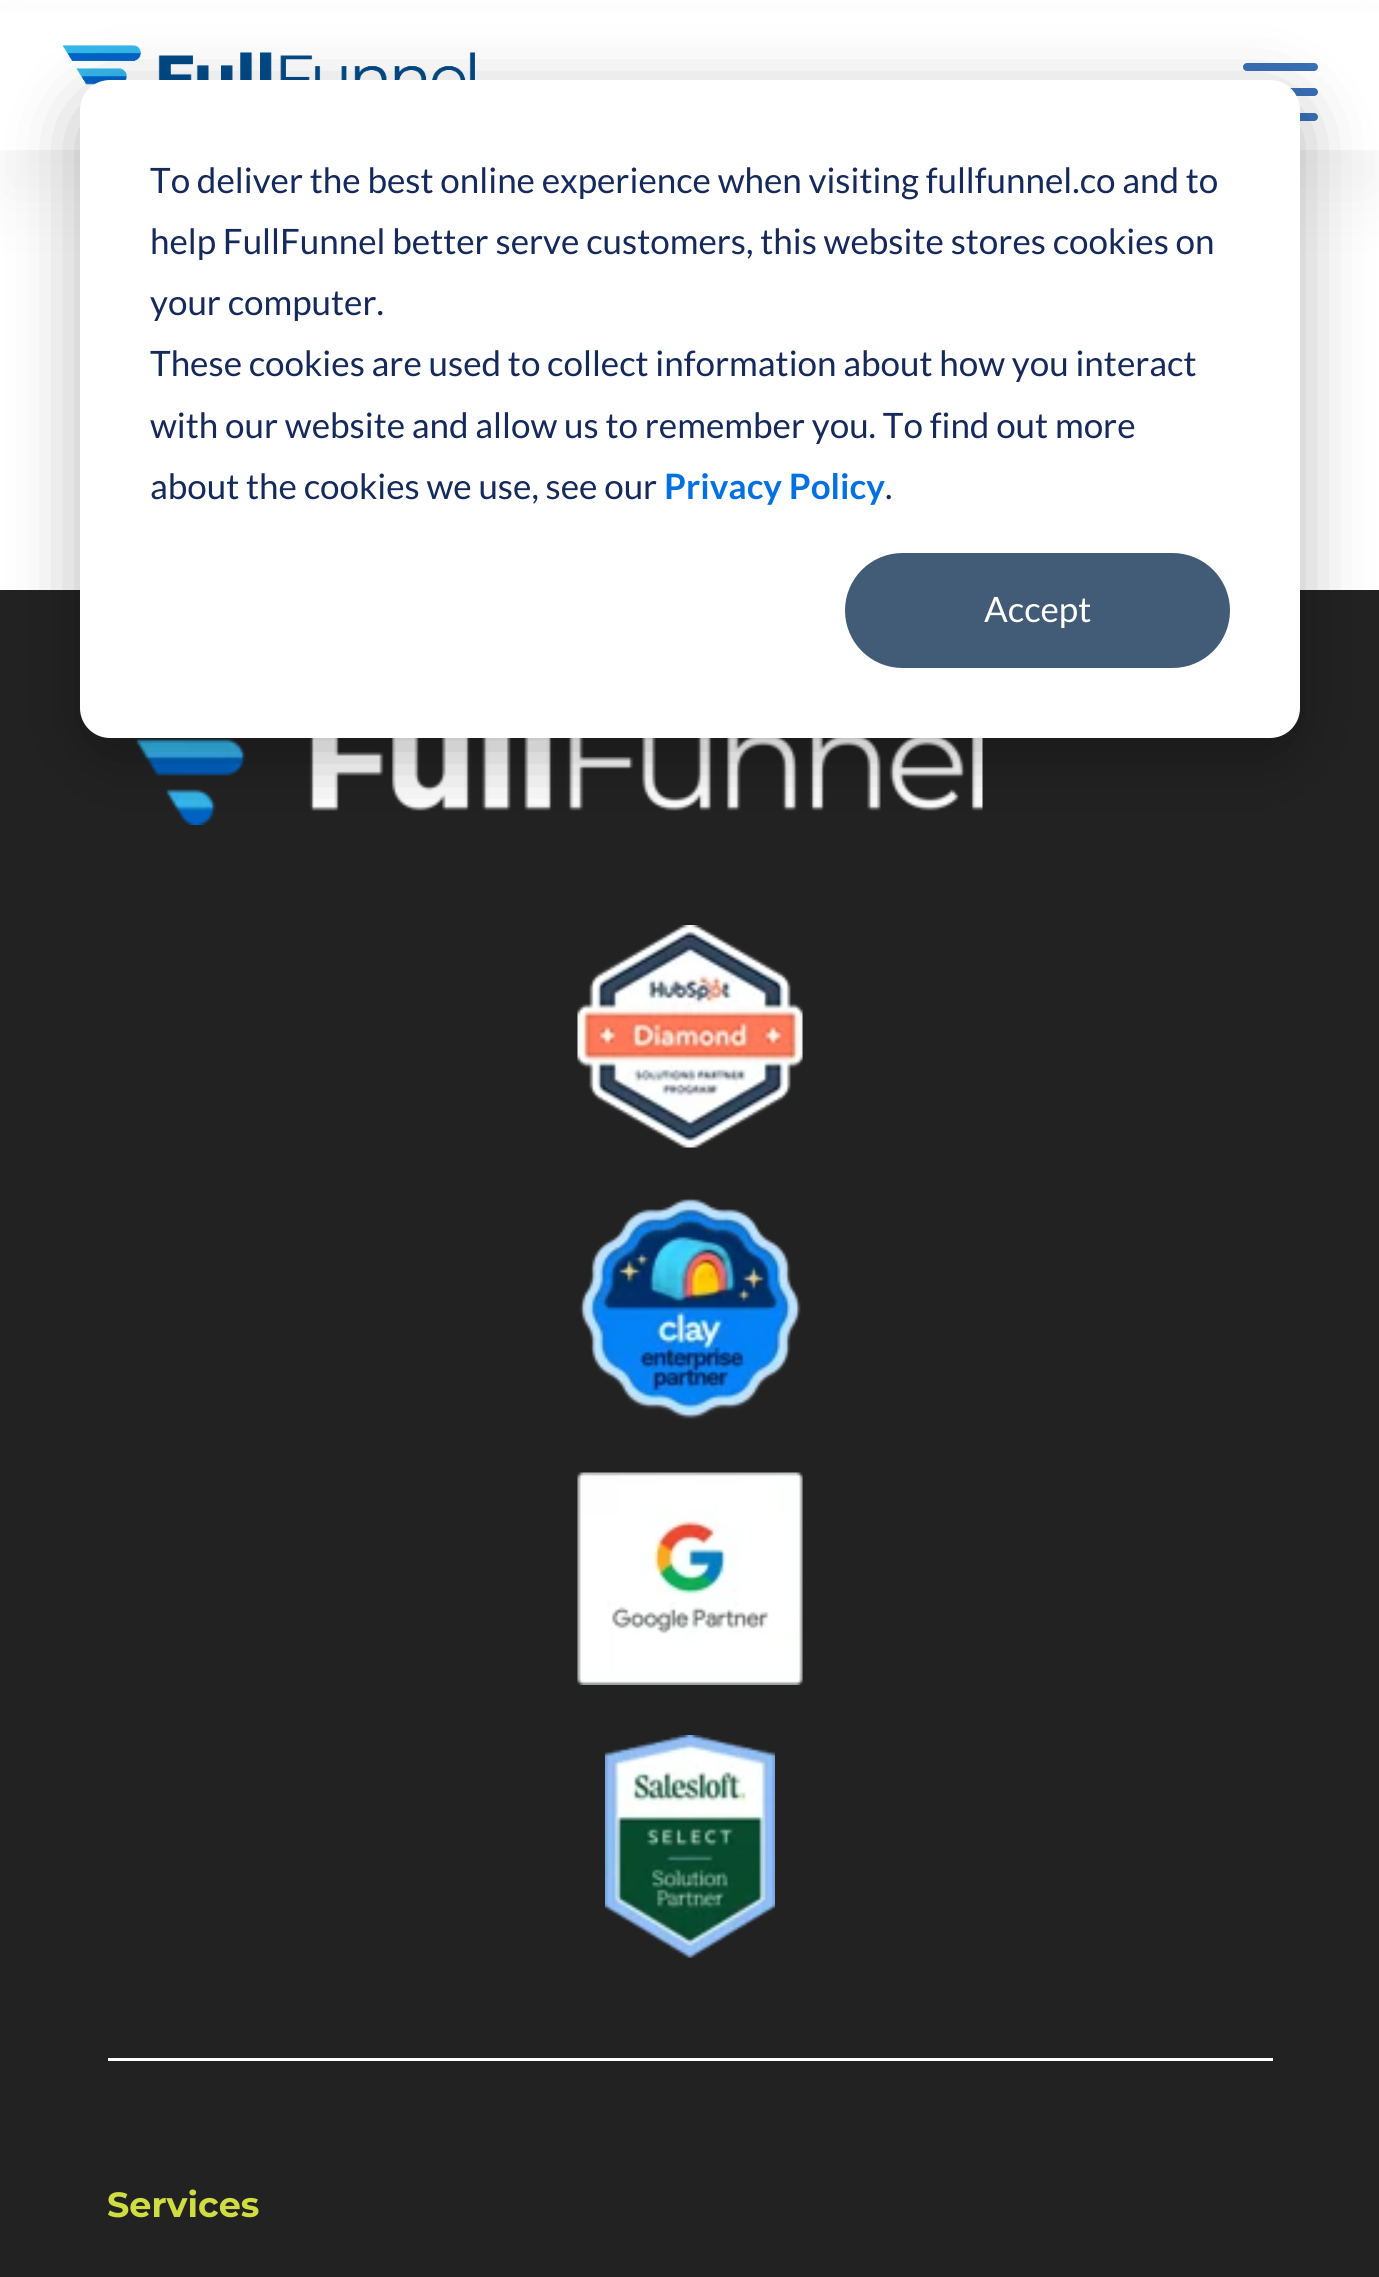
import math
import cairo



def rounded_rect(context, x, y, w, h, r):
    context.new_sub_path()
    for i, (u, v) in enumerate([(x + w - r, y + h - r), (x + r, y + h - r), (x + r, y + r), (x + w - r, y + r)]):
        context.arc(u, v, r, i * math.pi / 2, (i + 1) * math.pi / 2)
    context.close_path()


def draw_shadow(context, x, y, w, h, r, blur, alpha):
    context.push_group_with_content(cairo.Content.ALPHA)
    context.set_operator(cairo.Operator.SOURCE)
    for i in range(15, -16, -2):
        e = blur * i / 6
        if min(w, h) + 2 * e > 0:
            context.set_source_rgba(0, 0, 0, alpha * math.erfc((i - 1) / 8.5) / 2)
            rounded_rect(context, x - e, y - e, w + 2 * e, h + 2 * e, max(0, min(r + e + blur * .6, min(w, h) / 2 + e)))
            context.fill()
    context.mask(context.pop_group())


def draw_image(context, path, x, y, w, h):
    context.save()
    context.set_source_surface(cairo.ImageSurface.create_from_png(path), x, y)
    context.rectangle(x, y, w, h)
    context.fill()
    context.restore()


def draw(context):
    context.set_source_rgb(1, 1, 1)
    context.paint()
    context.set_source_rgb(0, 0, 0)
    draw_shadow(context, 0, 45, 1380, 150, 0, 37.5, 0.05)
    context.set_source_rgb(1, 1, 1)
    context.rectangle(0, 13, 1379, 137)
    context.fill()
    draw_image(context, "images/1.png", 63, 45, 412, 40)
    context.set_source_rgb(56 / 255, 113 / 255, 183 / 255)
    rounded_rect(context, 1243, 63, 75, 8, 4)
    context.fill()
    rounded_rect(context, 1243, 88, 75, 8, 4)
    context.fill()
    rounded_rect(context, 1243, 113, 75, 8, 4)
    context.fill()
    context.set_source_rgb(34 / 255, 34 / 255, 34 / 255)
    context.rectangle(0, 590, 1379, 1687)
    context.fill()
    draw_image(context, "images/2.png", 135, 738, 848, 87)
    context.set_source_rgb(0, 0, 0)
    draw_shadow(context, 80, 100, 1220, 658, 30, 35, 0.28)
    context.set_source_rgb(1, 1, 1)
    rounded_rect(context, 80, 80, 1220, 658, 30)
    context.fill()
    context.set_source_rgb(66 / 255, 91 / 255, 118 / 255)
    rounded_rect(context, 846.5, 554.5, 382, 112, 56)
    context.fill_preserve()
    context.set_line_width(3)
    context.stroke()
    draw_image(context, "images/3.png", 577, 925, 226, 223)
    draw_image(context, "images/4.png", 579, 1198, 222, 222)
    draw_image(context, "images/5.png", 577, 1472, 226, 213)
    draw_image(context, "images/6.png", 605, 1735, 170, 223)
    context.set_source_rgb(1, 1, 1)
    context.rectangle(108, 2058, 1165, 3)
    context.fill()
    context.select_font_face("Lato")
    context.set_font_size(35)
    context.set_source_rgb(21 / 255, 41 / 255, 90 / 255)
    context.move_to(150, 193)
    context.show_text("To deliver the best online experience when visiting fullfunnel.co and to")
    context.move_to(150, 254)
    context.show_text("help FullFunnel better serve customers, this website stores cookies on")
    context.move_to(150, 315)
    context.show_text("your computer.")
    context.move_to(150, 376)
    context.show_text("These cookies are used to collect information about how you interact")
    context.move_to(150, 438)
    context.show_text("with our website and allow us to remember you. To find out more")
    context.move_to(150, 499)
    context.show_text("about the cookies we use, see our")
    context.select_font_face("Lato", cairo.FontSlant.NORMAL, cairo.FontWeight.BOLD)
    context.set_source_rgb(2 / 255, 112 / 255, 224 / 255)
    context.move_to(664, 499)
    context.show_text("Privacy Policy")
    context.select_font_face("Lato")
    context.set_source_rgb(21 / 255, 41 / 255, 90 / 255)
    context.move_to(885, 499)
    context.show_text(".")
    context.set_source_rgb(1, 1, 1)
    context.move_to(984, 622)
    context.show_text("Accept")
    context.select_font_face("Montserrat", cairo.FontSlant.NORMAL, cairo.FontWeight.BOLD)
    context.set_source_rgb(207 / 255, 221 / 255, 66 / 255)
    context.move_to(107, 2217)
    context.show_text("Services")


surface = cairo.ImageSurface(cairo.Format.RGB24, 1379, 2277)
context = cairo.Context(surface)
options = cairo.FontOptions()
options.set_hint_metrics(cairo.HintMetrics.OFF)
options.set_hint_style(cairo.HintStyle.NONE)
context.set_font_options(options)
context.set_miter_limit(4)
draw(context)
surface.write_to_png("out.png")
